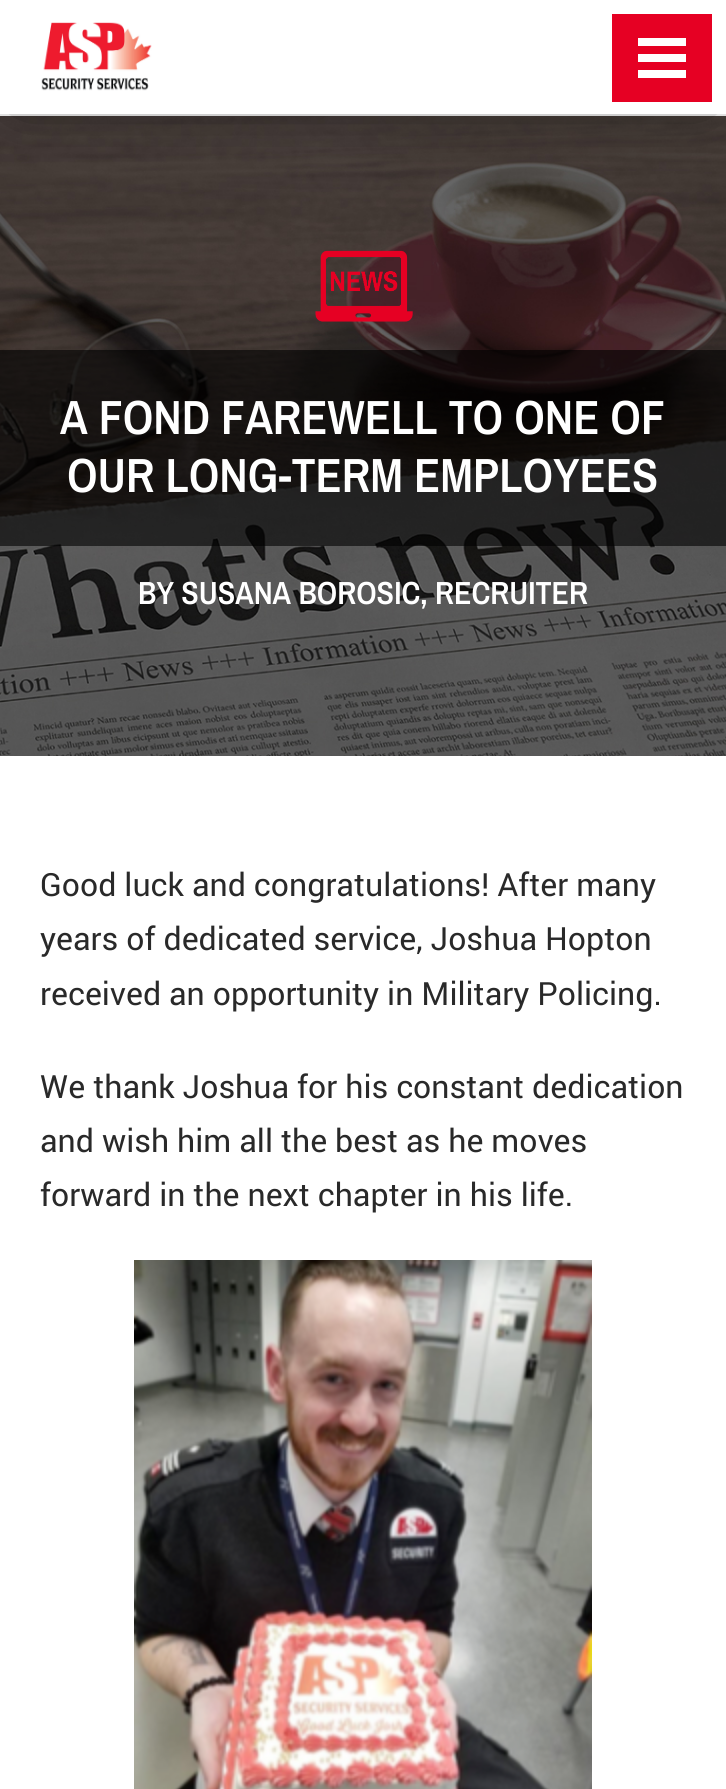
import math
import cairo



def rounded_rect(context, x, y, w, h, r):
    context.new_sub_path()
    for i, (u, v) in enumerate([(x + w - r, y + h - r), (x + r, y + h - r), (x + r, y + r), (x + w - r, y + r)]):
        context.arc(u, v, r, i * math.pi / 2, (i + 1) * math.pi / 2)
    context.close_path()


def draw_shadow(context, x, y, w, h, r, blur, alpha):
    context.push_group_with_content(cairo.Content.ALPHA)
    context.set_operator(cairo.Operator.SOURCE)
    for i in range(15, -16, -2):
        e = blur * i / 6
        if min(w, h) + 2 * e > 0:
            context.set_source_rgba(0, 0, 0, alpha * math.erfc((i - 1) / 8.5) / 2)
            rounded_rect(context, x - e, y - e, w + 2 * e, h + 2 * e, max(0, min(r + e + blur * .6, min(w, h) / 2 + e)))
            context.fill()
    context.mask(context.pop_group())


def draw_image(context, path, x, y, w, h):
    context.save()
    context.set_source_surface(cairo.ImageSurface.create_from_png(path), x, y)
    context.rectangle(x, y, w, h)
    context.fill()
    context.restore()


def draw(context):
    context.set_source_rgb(1, 1, 1)
    context.paint()
    draw_image(context, "images/2.png", 0, 116, 726, 640)
    context.save()
    context.rectangle(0, 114, 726, 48)
    context.clip()
    context.set_source_rgb(0, 0, 0)
    draw_shadow(context, 18, 18, 690, 78, 0, 34, 0.75)
    context.restore()
    draw_image(context, "images/1.png", 41, 22, 111, 69)
    context.set_source_rgb(230 / 255, 0, 35 / 255)
    context.rectangle(612, 14, 100, 88)
    context.fill()
    context.set_source_rgb(1, 1, 1)
    context.rectangle(638, 38, 48, 8)
    context.fill()
    context.rectangle(638, 54, 48, 8)
    context.fill()
    context.rectangle(638, 70, 48, 8)
    context.fill()
    draw_image(context, "images/3.png", 315, 250, 98, 72)
    context.set_source_rgba(0, 0, 0, 0.6)
    context.rectangle(0, 350, 726, 196)
    context.fill()
    draw_image(context, "images/4.png", 134, 1260, 458, 529)
    context.select_font_face("Archivo Narrow SemiBold")
    context.set_font_size(48)
    context.set_source_rgb(1, 1, 1)
    context.move_to(60, 434)
    context.show_text("A FOND FAREWELL TO ONE OF")
    context.move_to(67, 492)
    context.show_text("OUR LONG-TERM EMPLOYEES")
    context.set_font_size(32)
    context.move_to(138, 604)
    context.show_text("BY SUSANA BOROSIC, RECRUITER")
    context.select_font_face("Roboto")
    context.set_source_rgb(41 / 255, 41 / 255, 41 / 255)
    context.move_to(40, 896)
    context.show_text("Good luck and congratulations! After many")
    context.move_to(40, 950)
    context.show_text("years of dedicated service, Joshua Hopton")
    context.move_to(40, 1005)
    context.show_text("received an opportunity in Military Policing.")
    context.move_to(40, 1098)
    context.show_text("We thank Joshua for his constant dedication")
    context.move_to(40, 1152)
    context.show_text("and wish him all the best as he moves")
    context.move_to(40, 1206)
    context.show_text("forward in the next chapter in his life.")


surface = cairo.ImageSurface(cairo.Format.RGB24, 726, 1789)
context = cairo.Context(surface)
options = cairo.FontOptions()
options.set_hint_metrics(cairo.HintMetrics.OFF)
options.set_hint_style(cairo.HintStyle.NONE)
context.set_font_options(options)
context.set_miter_limit(4)
draw(context)
surface.write_to_png("out.png")
